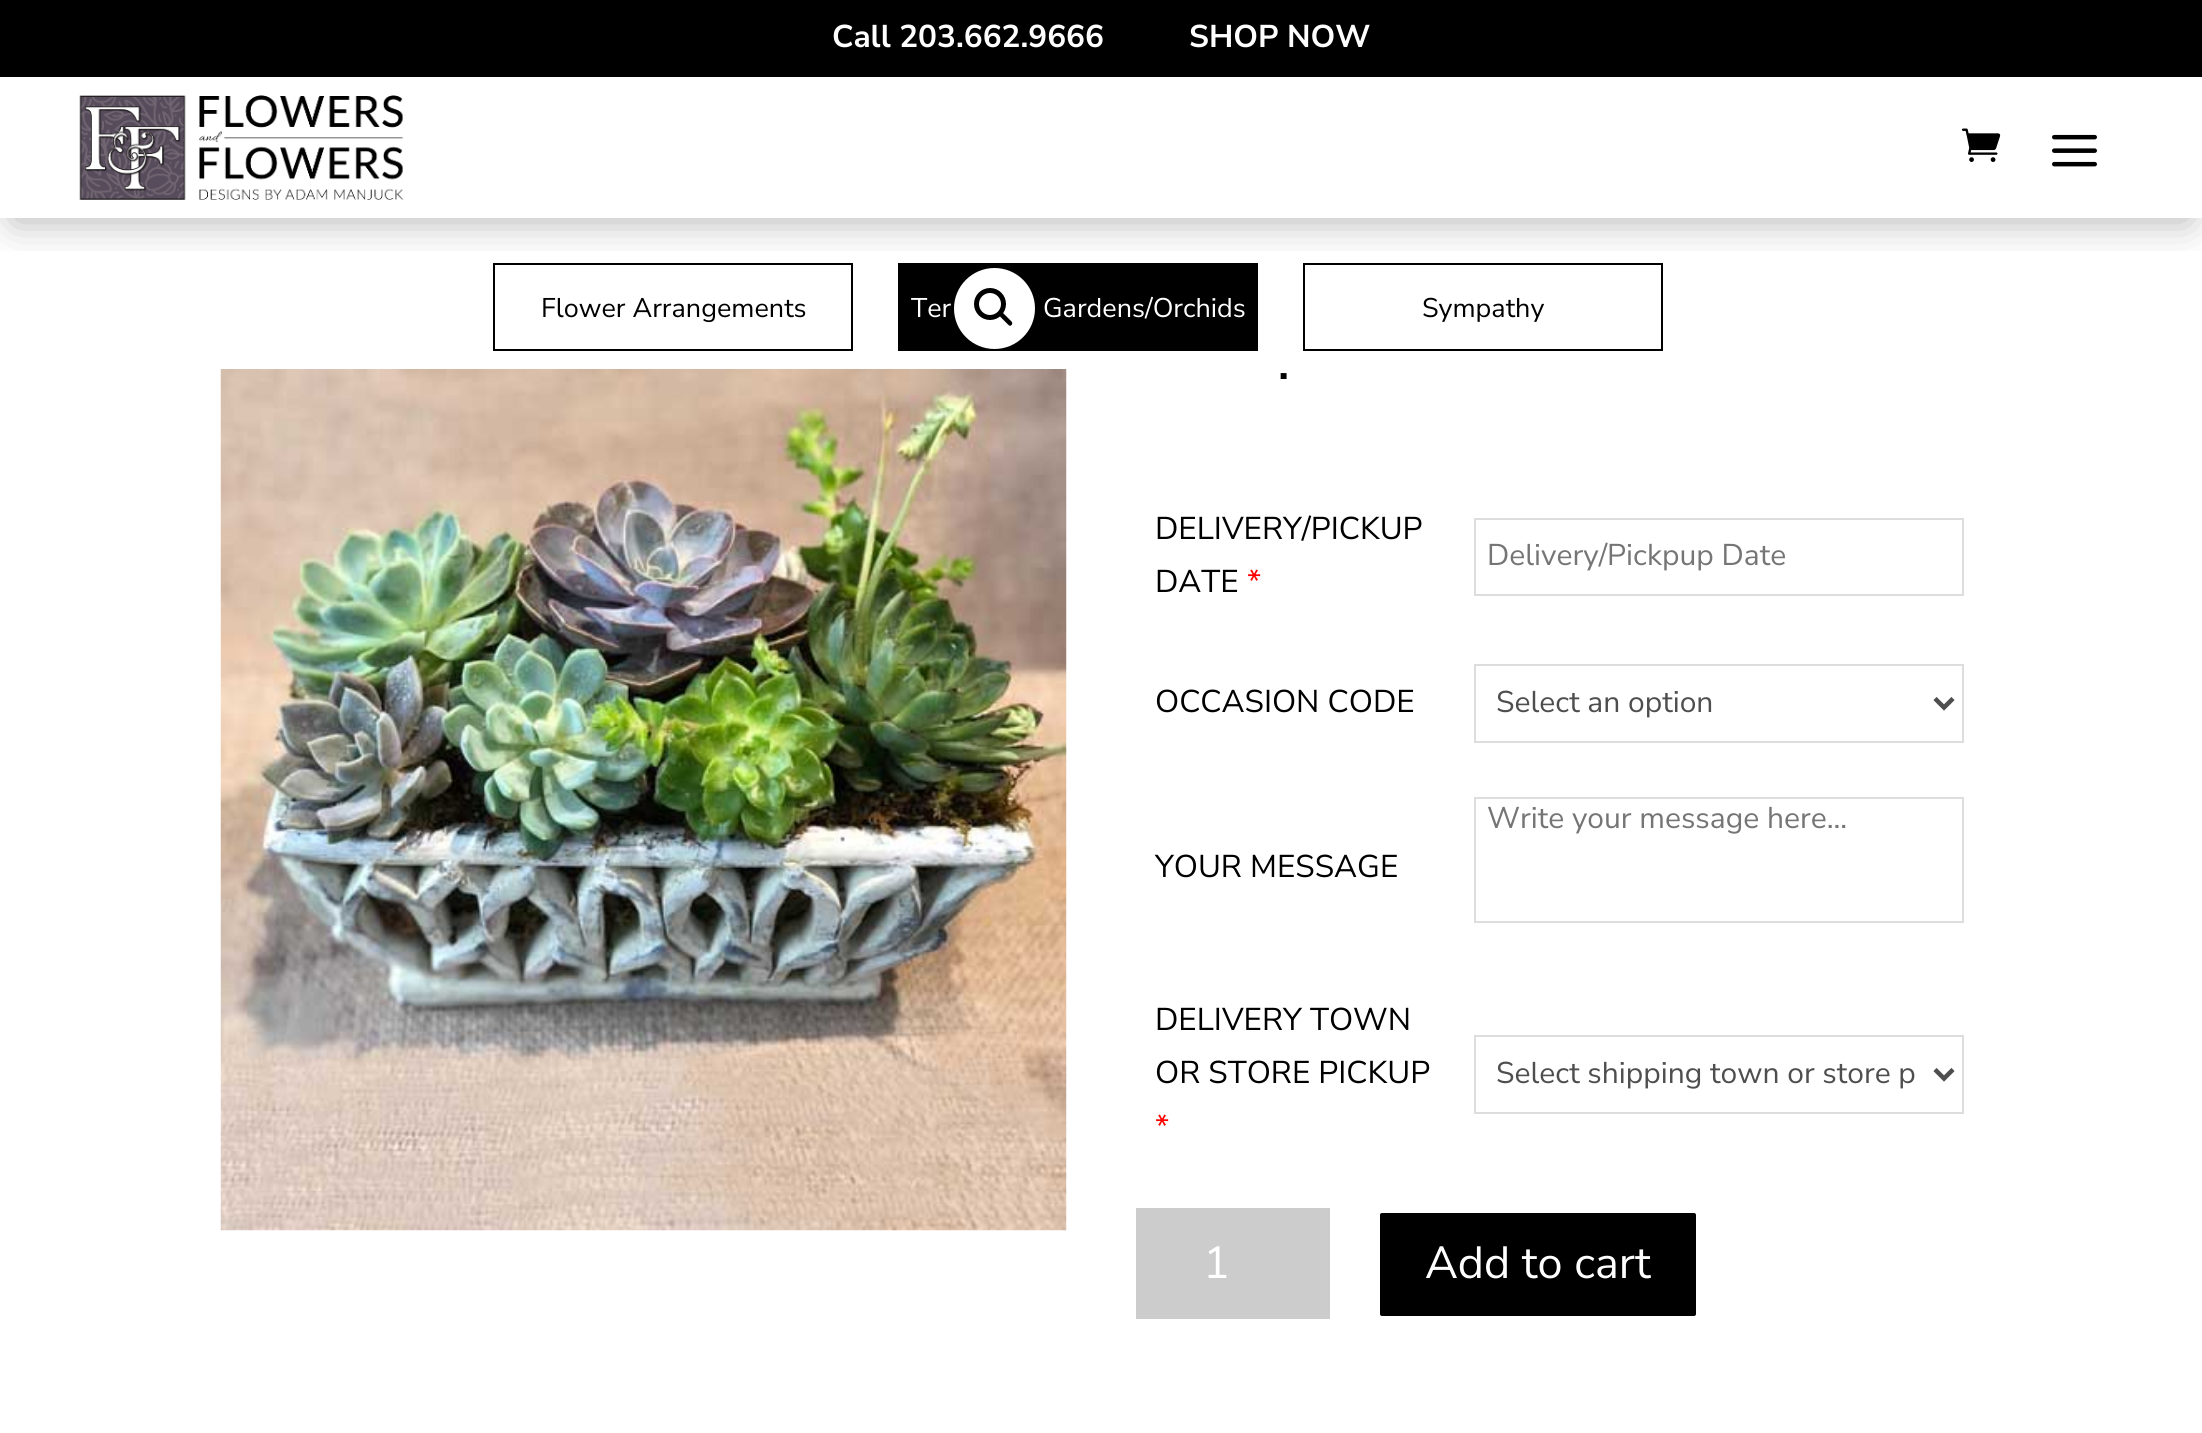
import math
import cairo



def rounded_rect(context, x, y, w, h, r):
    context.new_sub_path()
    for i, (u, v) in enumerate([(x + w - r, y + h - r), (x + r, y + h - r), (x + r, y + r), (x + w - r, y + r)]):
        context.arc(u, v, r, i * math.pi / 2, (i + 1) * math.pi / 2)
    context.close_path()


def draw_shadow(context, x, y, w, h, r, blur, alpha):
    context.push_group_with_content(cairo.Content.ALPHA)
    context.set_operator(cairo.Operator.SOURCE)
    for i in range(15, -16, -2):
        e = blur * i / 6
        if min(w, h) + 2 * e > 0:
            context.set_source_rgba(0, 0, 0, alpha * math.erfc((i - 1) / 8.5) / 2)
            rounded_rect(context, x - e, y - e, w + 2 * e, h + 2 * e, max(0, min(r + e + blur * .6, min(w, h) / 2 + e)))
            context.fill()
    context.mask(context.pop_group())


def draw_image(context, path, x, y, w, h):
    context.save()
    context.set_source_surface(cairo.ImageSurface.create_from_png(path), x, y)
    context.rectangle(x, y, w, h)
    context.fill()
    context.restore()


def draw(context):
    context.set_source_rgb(1, 1, 1)
    context.paint()
    context.rectangle(494, 264, 358, 86)
    context.set_source_rgb(0, 0, 0)
    context.stroke()
    context.rectangle(898, 263, 360, 88)
    context.fill()
    context.rectangle(1304, 264, 358, 86)
    context.stroke()
    context.save()
    context.rectangle(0, 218, 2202, 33)
    context.clip()
    context.set_source_rgb(0, 0, 0)
    draw_shadow(context, 14, 29, 2175, 192, 0, 20, 0.3)
    context.restore()
    context.rectangle(0, 0, 2202, 77)
    context.fill()
    draw_image(context, "images/1.png", 79, 95, 325, 105)
    draw_image(context, "images/2.png", 1961, 128, 40, 34)
    draw_image(context, "images/3.png", 2052, 134, 45, 33)
    context.set_source_rgb(1, 1, 1)
    context.arc(994.5, 308.5, 40.5, 0, 2 * math.pi)
    context.fill()
    context.arc(990, 304, 13.5, 0, 2 * math.pi)
    context.set_source_rgb(0, 0, 0)
    context.set_line_width(5)
    context.stroke()
    context.new_path()
    context.move_to(999, 312)
    context.curve_to(1000, 311.5, 1001.5, 311.5, 1002, 312)
    context.line_to(1011.5, 321.5)
    context.curve_to(1012.5, 322.5, 1012.5, 324, 1011.5, 325)
    context.curve_to(1011, 326, 1009.5, 326, 1008.5, 325)
    context.line_to(999, 315.5)
    context.curve_to(998, 314.5, 998, 313, 999, 312)
    context.close_path()
    context.fill()
    draw_image(context, "images/4.png", 220, 369, 847, 862)
    context.rectangle(1475, 519, 488, 76)
    context.set_source_rgb(221 / 255, 221 / 255, 221 / 255)
    context.set_line_width(2)
    context.stroke()
    context.rectangle(1475, 665, 488, 77)
    context.stroke()
    context.new_path()
    context.move_to(1935, 698.5)
    context.line_to(1944, 707.5)
    context.line_to(1953, 698.5)
    context.set_source_rgb(78 / 255, 78 / 255, 78 / 255)
    context.set_line_width(4.5)
    context.stroke()
    context.rectangle(1475, 798, 488, 124)
    context.set_source_rgb(221 / 255, 221 / 255, 221 / 255)
    context.set_line_width(2)
    context.stroke()
    context.rectangle(1475, 1036, 488, 77)
    context.stroke()
    context.new_path()
    context.move_to(1935, 1069.5)
    context.line_to(1944, 1078.5)
    context.line_to(1953, 1069.5)
    context.set_source_rgb(78 / 255, 78 / 255, 78 / 255)
    context.set_line_width(4.5)
    context.stroke()
    context.set_source_rgb(204 / 255, 204 / 255, 204 / 255)
    context.rectangle(1136, 1208, 194, 111)
    context.fill()
    context.set_source_rgb(0, 0, 0)
    rounded_rect(context, 1377.5, 1210.5, 321, 108, 4.5)
    context.fill_preserve()
    context.set_source_rgb(1, 1, 1)
    context.set_line_width(5)
    context.stroke()
    context.select_font_face("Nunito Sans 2 ExtraLight")
    context.set_font_size(31.5)
    context.move_to(832, 47)
    context.show_text("Call 203.662.9666")
    context.move_to(1189, 47)
    context.show_text("SHOP NOW")
    context.select_font_face("Nunito Sans ExtraLight")
    context.set_font_size(27)
    context.set_source_rgb(0, 0, 0)
    context.move_to(541, 317)
    context.show_text("Flower Arrangements")
    context.set_source_rgb(1, 1, 1)
    context.move_to(911, 317)
    context.show_text("Ter")
    context.move_to(1043, 317)
    context.show_text("Gardens/Orchids")
    context.set_source_rgb(0, 0, 0)
    context.move_to(1422, 317)
    context.show_text("Sympathy")
    context.set_font_size(58)
    context.move_to(1277, 379)
    context.show_text(".")
    context.set_font_size(31.5)
    context.move_to(1155, 539)
    context.show_text("DELIVERY/PICKUP")
    context.move_to(1155, 592)
    context.show_text("DATE")
    context.set_source_rgb(1, 0, 0)
    context.move_to(1247, 592)
    context.show_text("*")
    context.set_font_size(30)
    context.set_source_rgb(117 / 255, 117 / 255, 117 / 255)
    context.move_to(1487, 565)
    context.show_text("Delivery/Pickpup Date")
    context.set_font_size(31.5)
    context.set_source_rgb(0, 0, 0)
    context.move_to(1155, 712)
    context.show_text("OCCASION CODE")
    context.set_font_size(30)
    context.set_source_rgb(78 / 255, 78 / 255, 78 / 255)
    context.move_to(1496, 712)
    context.show_text("Select an option")
    context.set_source_rgb(117 / 255, 117 / 255, 117 / 255)
    context.move_to(1487, 828)
    context.show_text("Write your message here...")
    context.set_font_size(31.5)
    context.set_source_rgb(0, 0, 0)
    context.move_to(1155, 877)
    context.show_text("YOUR MESSAGE")
    context.move_to(1155, 1030)
    context.show_text("DELIVERY TOWN")
    context.move_to(1155, 1083)
    context.show_text("OR STORE PICKUP")
    context.set_source_rgb(1, 0, 0)
    context.move_to(1155, 1137)
    context.show_text("*")
    context.set_font_size(30)
    context.set_source_rgb(78 / 255, 78 / 255, 78 / 255)
    context.move_to(1496, 1083)
    context.show_text("Select shipping town or store p")
    context.set_font_size(45)
    context.set_source_rgb(1, 1, 1)
    context.move_to(1203, 1278)
    context.show_text("1")
    context.move_to(1425, 1278)
    context.show_text("Add to cart")


surface = cairo.ImageSurface(cairo.Format.RGB24, 2202, 1433)
context = cairo.Context(surface)
options = cairo.FontOptions()
options.set_hint_metrics(cairo.HintMetrics.OFF)
options.set_hint_style(cairo.HintStyle.NONE)
context.set_font_options(options)
context.set_miter_limit(4)
draw(context)
surface.write_to_png("out.png")
